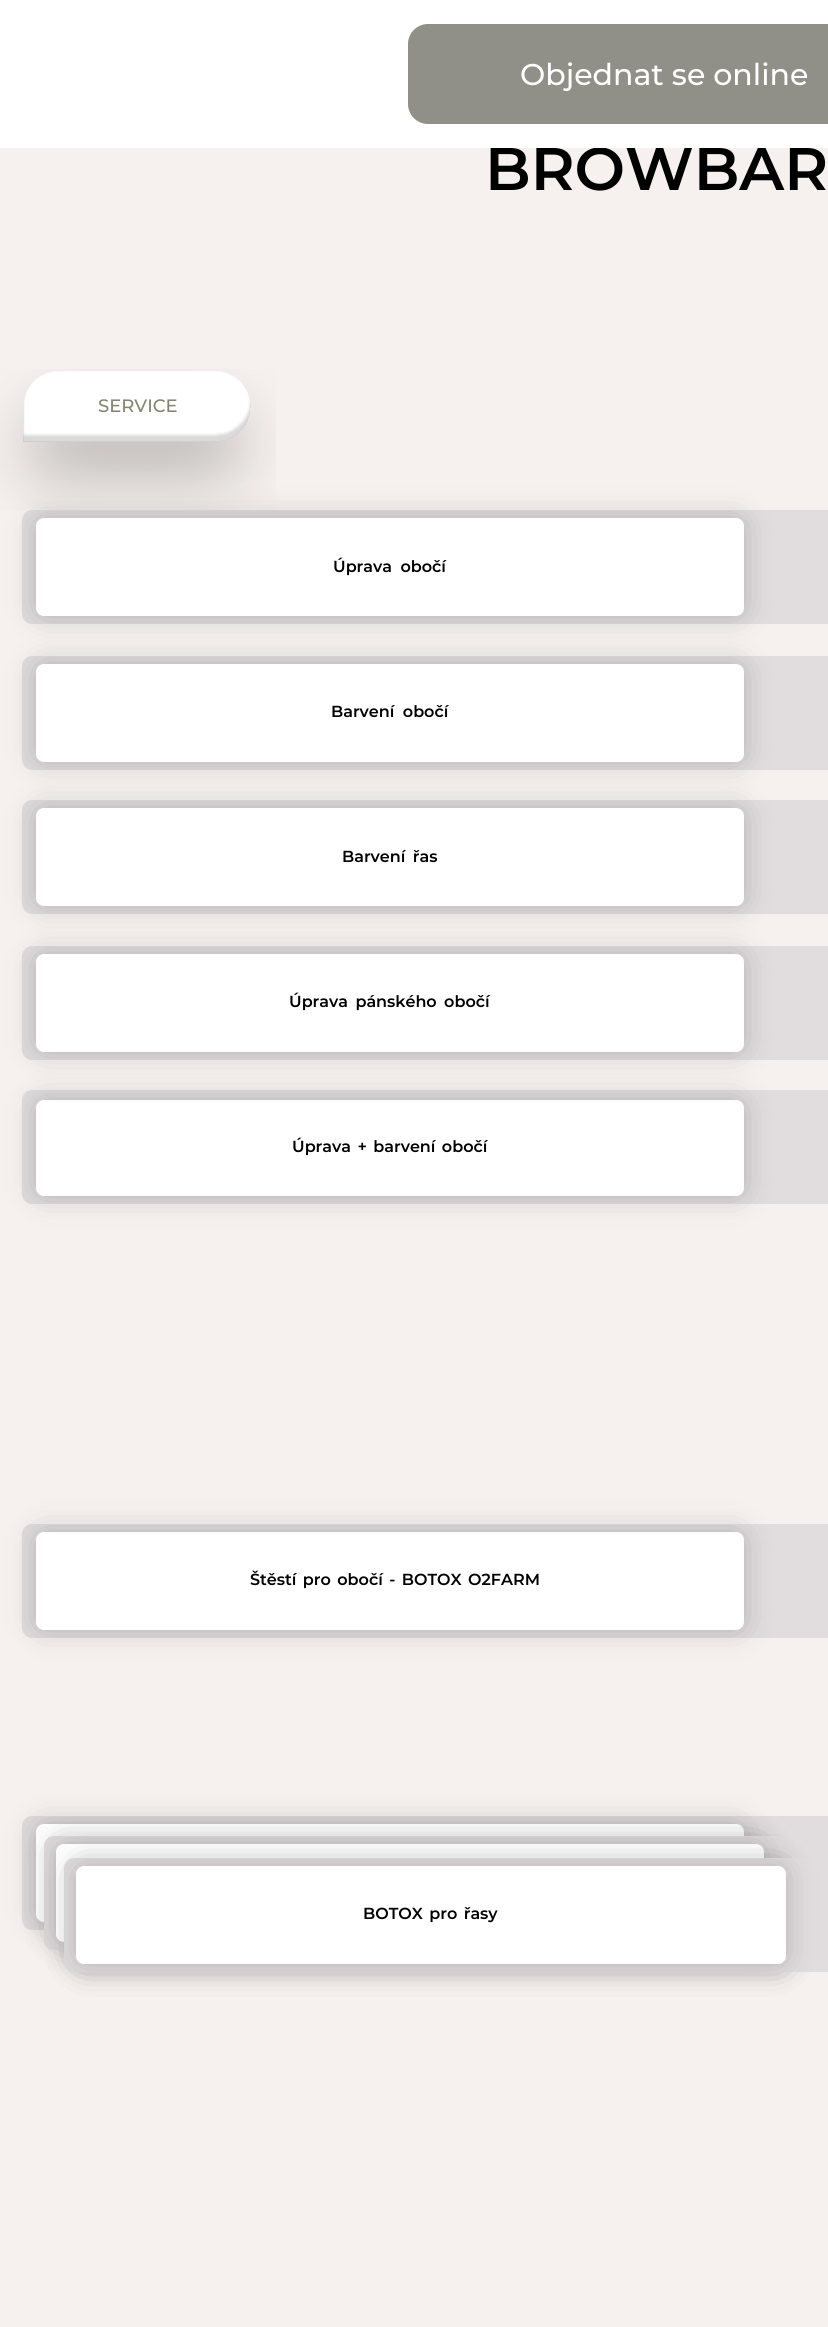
import math
import cairo



def draw_spaced(context, x, y, s, letter, word):
    context.move_to(x, y)
    for ch in s:
        context.show_text(ch)
        context.rel_move_to(letter + word * (ch == ' '), 0)


def rounded_rect(context, x, y, w, h, r):
    context.new_sub_path()
    for i, (u, v) in enumerate([(x + w - r, y + h - r), (x + r, y + h - r), (x + r, y + r), (x + w - r, y + r)]):
        context.arc(u, v, r, i * math.pi / 2, (i + 1) * math.pi / 2)
    context.close_path()


def draw_shadow(context, x, y, w, h, r, blur, alpha):
    context.push_group_with_content(cairo.Content.ALPHA)
    context.set_operator(cairo.Operator.SOURCE)
    for i in range(15, -16, -2):
        e = blur * i / 6
        if min(w, h) + 2 * e > 0:
            context.set_source_rgba(0, 0, 0, alpha * math.erfc((i - 1) / 8.5) / 2)
            rounded_rect(context, x - e, y - e, w + 2 * e, h + 2 * e, max(0, min(r + e + blur * .6, min(w, h) / 2 + e)))
            context.fill()
    context.mask(context.pop_group())


def draw_image(context, path, x, y, w, h):
    context.save()
    context.set_source_surface(cairo.ImageSurface.create_from_png(path), x, y)
    context.rectangle(x, y, w, h)
    context.fill()
    context.restore()


def draw(context):
    context.set_source_rgb(246 / 255, 241 / 255, 238 / 255)
    context.paint()
    draw_image(context, "images/1.png", 0, 369, 276, 141)
    context.set_source_rgb(225 / 255, 221 / 255, 222 / 255)
    context.new_path()
    context.move_to(32, 510)
    context.line_to(828, 510)
    context.line_to(828, 624)
    context.line_to(32, 624)
    context.curve_to(26.5, 624, 22, 619.5, 22, 614)
    context.line_to(22, 520)
    context.curve_to(22, 514.5, 26.5, 510, 32, 510)
    context.close_path()
    context.fill()
    context.set_source_rgb(0, 0, 0)
    draw_shadow(context, 36, 518, 708, 98, 8, 15, 0.2)
    context.set_source_rgb(1, 1, 1)
    rounded_rect(context, 36, 518, 708, 98, 8)
    context.fill()
    context.set_source_rgb(225 / 255, 221 / 255, 222 / 255)
    context.new_path()
    context.move_to(32, 656)
    context.line_to(828, 656)
    context.line_to(828, 770)
    context.line_to(32, 770)
    context.curve_to(26.5, 770, 22, 765.5, 22, 760)
    context.line_to(22, 666)
    context.curve_to(22, 660.5, 26.5, 656, 32, 656)
    context.close_path()
    context.fill()
    context.set_source_rgb(0, 0, 0)
    draw_shadow(context, 36, 664, 708, 98, 8, 15, 0.2)
    context.set_source_rgb(1, 1, 1)
    rounded_rect(context, 36, 664, 708, 98, 8)
    context.fill()
    context.set_source_rgb(225 / 255, 221 / 255, 222 / 255)
    context.new_path()
    context.move_to(32, 800)
    context.line_to(828, 800)
    context.line_to(828, 914)
    context.line_to(32, 914)
    context.curve_to(26.5, 914, 22, 909.5, 22, 904)
    context.line_to(22, 810)
    context.curve_to(22, 804.5, 26.5, 800, 32, 800)
    context.close_path()
    context.fill()
    context.set_source_rgb(0, 0, 0)
    draw_shadow(context, 36, 808, 708, 98, 8, 15, 0.2)
    context.set_source_rgb(1, 1, 1)
    rounded_rect(context, 36, 808, 708, 98, 8)
    context.fill()
    context.set_source_rgb(225 / 255, 221 / 255, 222 / 255)
    context.new_path()
    context.move_to(32, 946)
    context.line_to(828, 946)
    context.line_to(828, 1060)
    context.line_to(32, 1060)
    context.curve_to(26.5, 1060, 22, 1055.5, 22, 1050)
    context.line_to(22, 956)
    context.curve_to(22, 950.5, 26.5, 946, 32, 946)
    context.close_path()
    context.fill()
    context.set_source_rgb(0, 0, 0)
    draw_shadow(context, 36, 954, 708, 98, 8, 15, 0.2)
    context.set_source_rgb(1, 1, 1)
    rounded_rect(context, 36, 954, 708, 98, 8)
    context.fill()
    context.set_source_rgb(225 / 255, 221 / 255, 222 / 255)
    context.new_path()
    context.move_to(32, 1090)
    context.line_to(828, 1090)
    context.line_to(828, 1204)
    context.line_to(32, 1204)
    context.curve_to(26.5, 1204, 22, 1199.5, 22, 1194)
    context.line_to(22, 1100)
    context.curve_to(22, 1094.5, 26.5, 1090, 32, 1090)
    context.close_path()
    context.fill()
    context.set_source_rgb(0, 0, 0)
    draw_shadow(context, 36, 1100, 708, 96, 8, 15, 0.2)
    context.set_source_rgb(1, 1, 1)
    rounded_rect(context, 36, 1100, 708, 96, 8)
    context.fill()
    context.set_source_rgb(225 / 255, 221 / 255, 222 / 255)
    context.new_path()
    context.move_to(32, 1524)
    context.line_to(828, 1524)
    context.line_to(828, 1638)
    context.line_to(32, 1638)
    context.curve_to(26.5, 1638, 22, 1633.5, 22, 1628)
    context.line_to(22, 1534)
    context.curve_to(22, 1528.5, 26.5, 1524, 32, 1524)
    context.close_path()
    context.fill()
    context.set_source_rgb(0, 0, 0)
    draw_shadow(context, 36, 1532, 708, 98, 8, 15, 0.2)
    context.set_source_rgb(1, 1, 1)
    rounded_rect(context, 36, 1532, 708, 98, 8)
    context.fill()
    context.set_source_rgb(225 / 255, 221 / 255, 222 / 255)
    context.new_path()
    context.move_to(32, 1816)
    context.line_to(828, 1816)
    context.line_to(828, 1930)
    context.line_to(32, 1930)
    context.curve_to(26.5, 1930, 22, 1925.5, 22, 1920)
    context.line_to(22, 1826)
    context.curve_to(22, 1820.5, 26.5, 1816, 32, 1816)
    context.close_path()
    context.fill()
    context.set_source_rgb(0, 0, 0)
    draw_shadow(context, 36, 1824, 708, 98, 8, 15, 0.2)
    context.set_source_rgb(1, 1, 1)
    rounded_rect(context, 36, 1824, 708, 98, 8)
    context.fill()
    context.set_source_rgb(0, 0, 0)
    draw_shadow(context, 56, 1844, 708, 98, 8, 15, 0.2)
    draw_shadow(context, 76, 1866, 710, 98, 8, 15, 0.2)
    context.set_source_rgb(225 / 255, 221 / 255, 222 / 255)
    context.new_path()
    context.move_to(54, 1836)
    context.line_to(828, 1836)
    context.line_to(828, 1950)
    context.line_to(54, 1950)
    context.curve_to(48.5, 1950, 44, 1945.5, 44, 1940)
    context.line_to(44, 1846)
    context.curve_to(44, 1840.5, 48.5, 1836, 54, 1836)
    context.close_path()
    context.fill()
    context.set_source_rgb(0, 0, 0)
    draw_shadow(context, 56, 1844, 708, 98, 8, 15, 0.2)
    context.set_source_rgb(1, 1, 1)
    rounded_rect(context, 56, 1844, 708, 98, 8)
    context.fill()
    context.set_source_rgb(0, 0, 0)
    draw_shadow(context, 76, 1866, 710, 98, 8, 15, 0.2)
    context.set_source_rgb(225 / 255, 221 / 255, 222 / 255)
    context.new_path()
    context.move_to(74, 1858)
    context.line_to(828, 1858)
    context.line_to(828, 1972)
    context.line_to(74, 1972)
    context.curve_to(68.5, 1972, 64, 1967.5, 64, 1962)
    context.line_to(64, 1868)
    context.curve_to(64, 1862.5, 68.5, 1858, 74, 1858)
    context.close_path()
    context.fill()
    context.set_source_rgb(0, 0, 0)
    draw_shadow(context, 76, 1866, 710, 98, 8, 15, 0.2)
    context.set_source_rgb(1, 1, 1)
    rounded_rect(context, 76, 1866, 710, 98, 8)
    context.fill()
    context.select_font_face("Montserrat SemiBold")
    context.set_font_size(60)
    context.set_source_rgb(0, 0, 0)
    context.move_to(485, 190)
    context.show_text("BROWBAR")
    context.set_source_rgb(1, 1, 1)
    context.rectangle(0, 0, 828, 148)
    context.fill()
    context.set_source_rgb(144 / 255, 144 / 255, 137 / 255)
    context.new_path()
    context.move_to(428, 24)
    context.line_to(828, 24)
    context.line_to(828, 124)
    context.line_to(428, 124)
    context.curve_to(417, 124, 408, 115, 408, 104)
    context.line_to(408, 44)
    context.curve_to(408, 33, 417, 24, 428, 24)
    context.close_path()
    context.fill()
    context.select_font_face("Montserrat Medium")
    context.set_font_size(30)
    context.set_source_rgb(1, 1, 1)
    context.move_to(520, 85)
    context.show_text("Objednat se online")
    context.set_font_size(18)
    context.set_source_rgb(132 / 255, 132 / 255, 112 / 255)
    context.move_to(98, 412)
    context.show_text("SERVICE")
    context.select_font_face("Montserrat SemiBold")
    context.set_font_size(16)
    context.set_source_rgb(0, 0, 0)
    draw_spaced(context, 333, 572, "Úprava obočí", 0, 4)
    draw_spaced(context, 331, 717, "Barvení obočí", 0, 4)
    draw_spaced(context, 342, 862, "Barvení řas", 0, 3)
    draw_spaced(context, 289, 1007, "Úprava pánského obočí", 0, 3)
    draw_spaced(context, 292, 1152, "Úprava + barvení obočí", 0, 2)
    draw_spaced(context, 250, 1585, "Štěstí pro obočí - BOTOX O2FARM", 0, 2)
    draw_spaced(context, 363, 1919, "BOTOX pro řasy", 0, 2)


surface = cairo.ImageSurface(cairo.Format.RGB24, 828, 2327)
context = cairo.Context(surface)
options = cairo.FontOptions()
options.set_hint_metrics(cairo.HintMetrics.OFF)
options.set_hint_style(cairo.HintStyle.NONE)
context.set_font_options(options)
context.set_miter_limit(4)
draw(context)
surface.write_to_png("out.png")
